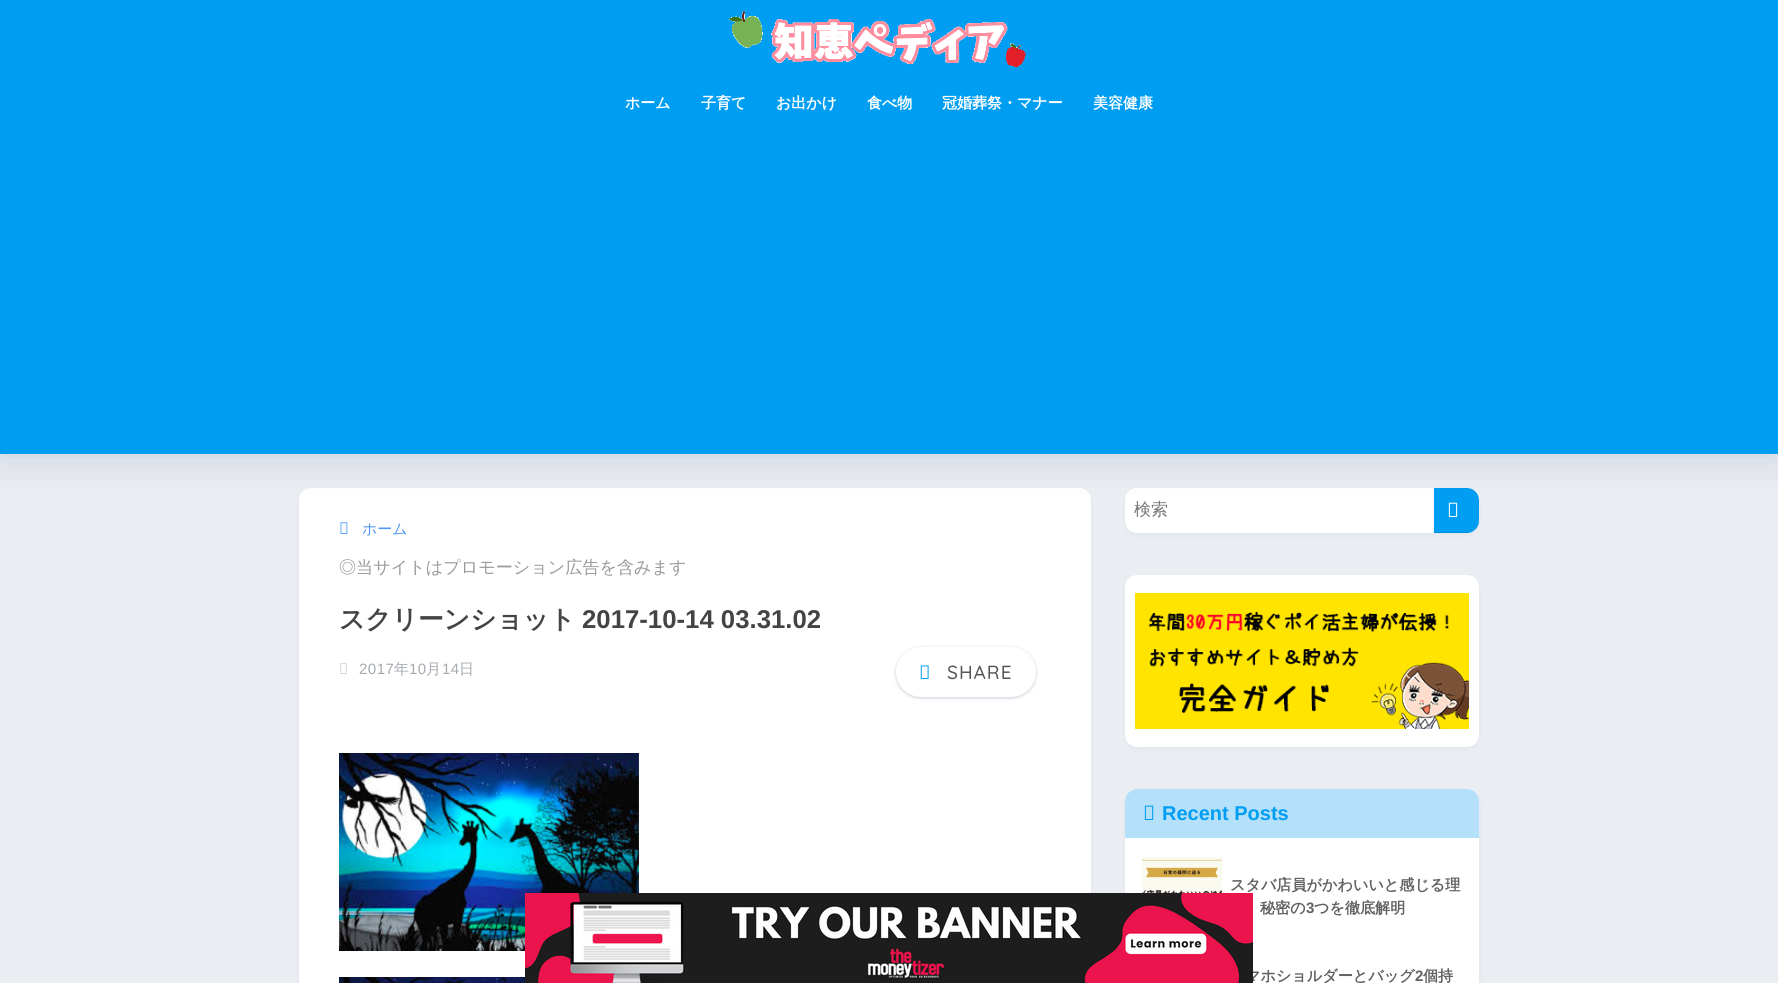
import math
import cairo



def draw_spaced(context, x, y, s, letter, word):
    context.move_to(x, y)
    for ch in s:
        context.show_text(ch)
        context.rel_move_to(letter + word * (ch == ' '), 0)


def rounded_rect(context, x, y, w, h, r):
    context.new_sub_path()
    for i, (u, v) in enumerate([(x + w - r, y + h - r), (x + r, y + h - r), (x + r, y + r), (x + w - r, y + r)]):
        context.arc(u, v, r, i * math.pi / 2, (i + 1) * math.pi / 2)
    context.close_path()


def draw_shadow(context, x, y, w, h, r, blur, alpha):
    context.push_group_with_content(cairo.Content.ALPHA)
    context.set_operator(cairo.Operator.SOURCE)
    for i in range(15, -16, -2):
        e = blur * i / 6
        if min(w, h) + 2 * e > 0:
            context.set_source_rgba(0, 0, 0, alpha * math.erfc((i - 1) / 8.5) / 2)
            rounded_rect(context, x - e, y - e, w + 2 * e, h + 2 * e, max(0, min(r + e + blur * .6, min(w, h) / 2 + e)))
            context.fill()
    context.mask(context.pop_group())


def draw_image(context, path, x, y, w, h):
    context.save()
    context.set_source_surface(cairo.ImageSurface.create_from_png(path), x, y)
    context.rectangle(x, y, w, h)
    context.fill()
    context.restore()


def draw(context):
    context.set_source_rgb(234 / 255, 237 / 255, 242 / 255)
    context.paint()
    context.set_source_rgb(67 / 255, 133 / 255, 187 / 255)
    draw_shadow(context, 299, 490, 792, 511, 12, 2, 0.07)
    context.set_source_rgb(1, 1, 1)
    rounded_rect(context, 299, 488, 792, 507, 12)
    context.fill()
    draw_image(context, "images/2.png", 340, 522, 8, 12)
    context.set_source_rgb(67 / 255, 133 / 255, 187 / 255)
    draw_shadow(context, 1125, 490, 354, 45, 12, 2, 0.07)
    context.set_source_rgb(1, 1, 1)
    rounded_rect(context, 1125, 488, 354, 45, 12)
    context.fill()
    context.set_source_rgb(0, 158 / 255, 243 / 255)
    context.new_path()
    context.move_to(1434, 488)
    context.line_to(1467, 488)
    context.curve_to(1473.5, 488, 1479, 493.5, 1479, 500)
    context.line_to(1479, 521)
    context.curve_to(1479, 527.5, 1473.5, 533, 1467, 533)
    context.line_to(1434, 533)
    context.close_path()
    context.fill()
    draw_image(context, "images/7.png", 1448, 502, 10, 15)
    context.set_source_rgb(0, 12 / 255, 66 / 255)
    draw_shadow(context, 0, 0, 1778, 454, 0, 22.5, 0.15)
    context.set_source_rgb(0, 158 / 255, 243 / 255)
    context.rectangle(0, 0, 1778, 454)
    context.fill()
    draw_image(context, "images/1.png", 728, 11, 298, 57)
    draw_image(context, "images/3.png", 340, 663, 7, 11)
    context.set_source_rgb(24 / 255, 44 / 255, 84 / 255)
    draw_shadow(context, 895, 647, 142, 52, 26, 1.5, 0.1)
    draw_shadow(context, 896, 648, 140, 50, 25, 1, 0.1)
    context.set_source_rgb(1, 1, 1)
    rounded_rect(context, 896, 647, 140, 50, 25)
    context.fill()
    draw_image(context, "images/4.png", 920, 665, 9, 14)
    draw_image(context, "images/5.png", 339, 753, 300, 198)
    draw_image(context, "images/6.png", 339, 977, 186, 6)
    context.save()
    rounded_rect(context, 1125, 488, 354, 45, 12)
    context.clip()
    context.set_source_rgba(0, 0, 0, 0.1)
    context.rectangle(1434, 532, 42, 1)
    context.fill()
    context.restore()
    context.set_source_rgb(67 / 255, 133 / 255, 187 / 255)
    draw_shadow(context, 1125, 577, 354, 172, 12, 2, 0.07)
    context.set_source_rgb(1, 1, 1)
    rounded_rect(context, 1125, 575, 354, 172, 12)
    context.fill()
    draw_image(context, "images/8.png", 1135, 593, 334, 136)
    context.set_source_rgb(67 / 255, 133 / 255, 187 / 255)
    draw_shadow(context, 1125, 791, 354, 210, 12, 2, 0.07)
    context.set_source_rgb(1, 1, 1)
    rounded_rect(context, 1125, 789, 354, 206, 12)
    context.fill()
    context.set_source_rgb(180 / 255, 224 / 255, 250 / 255)
    context.new_path()
    context.move_to(1137, 789)
    context.line_to(1467, 789)
    context.curve_to(1473.5, 789, 1479, 794.5, 1479, 801)
    context.line_to(1479, 838)
    context.line_to(1125, 838)
    context.line_to(1125, 801)
    context.curve_to(1125, 794.5, 1130.5, 789, 1137, 789)
    context.close_path()
    context.fill()
    draw_image(context, "images/9.png", 1144, 805, 10, 15)
    draw_image(context, "images/10.png", 1142, 857, 80, 36)
    context.select_font_face("WenQuanYi Zen Hei", cairo.FontSlant.NORMAL, cairo.FontWeight.BOLD)
    context.set_font_size(15)
    context.set_source_rgb(1, 1, 1)
    context.move_to(625, 108)
    context.show_text("ホーム")
    context.move_to(701, 108)
    context.show_text("子育て")
    context.move_to(776, 108)
    context.show_text("お出かけ")
    context.move_to(867, 108)
    context.show_text("食べ物")
    context.move_to(942, 108)
    context.show_text("冠婚葬祭・マナー")
    context.move_to(1093, 108)
    context.show_text("美容健康")
    context.select_font_face("WenQuanYi Zen Hei Medium")
    context.set_source_rgb(79 / 255, 150 / 255, 246 / 255)
    context.move_to(362, 534)
    context.show_text("ホーム")
    context.set_font_size(17.1)
    context.set_source_rgb(153 / 255, 153 / 255, 153 / 255)
    context.move_to(339, 573)
    context.show_text("◎当サイトはプロモーション広告を含みます")
    context.select_font_face("WenQuanYi Zen Hei", cairo.FontSlant.NORMAL, cairo.FontWeight.BOLD)
    context.set_font_size(25.75)
    context.set_source_rgb(68 / 255, 68 / 255, 68 / 255)
    context.move_to(339, 628)
    context.show_text("スクリーンショット")
    context.select_font_face("Liberation Sans", cairo.FontSlant.NORMAL, cairo.FontWeight.BOLD)
    context.move_to(582, 628)
    context.show_text("2017-10-14 03.31.02")
    context.select_font_face("Liberation Sans")
    context.set_font_size(15)
    context.set_source_rgb(165 / 255, 170 / 255, 175 / 255)
    draw_spaced(context, 359, 674, "2017", 0.5, 0)
    context.select_font_face("WenQuanYi Zen Hei Medium")
    draw_spaced(context, 394, 674, "年", 0.5, 0)
    context.select_font_face("Liberation Sans")
    draw_spaced(context, 409, 674, "10", 0.5, 0)
    context.select_font_face("WenQuanYi Zen Hei Medium")
    draw_spaced(context, 426, 674, "月", 0.5, 0)
    context.select_font_face("Liberation Sans")
    draw_spaced(context, 442, 674, "14", 0.5, 0)
    context.select_font_face("WenQuanYi Zen Hei Medium")
    draw_spaced(context, 459, 674, "日", 0.5, 0)
    context.select_font_face("Quicksand Medium")
    context.set_font_size(19)
    context.set_source_rgb(85 / 255, 85 / 255, 85 / 255)
    draw_spaced(context, 947, 679, "SHARE", 1, 0)
    context.select_font_face("WenQuanYi Zen Hei Medium")
    context.set_font_size(17)
    context.set_source_rgb(117 / 255, 117 / 255, 117 / 255)
    context.move_to(1134, 515)
    context.show_text("検索")
    context.select_font_face("Liberation Sans", cairo.FontSlant.NORMAL, cairo.FontWeight.BOLD)
    context.set_font_size(20)
    context.set_source_rgb(0, 158 / 255, 243 / 255)
    context.move_to(1162, 820)
    context.show_text("Recent Posts")
    context.select_font_face("WenQuanYi Zen Hei", cairo.FontSlant.NORMAL, cairo.FontWeight.BOLD)
    context.set_font_size(15.1)
    context.set_source_rgb(98 / 255, 98 / 255, 98 / 255)
    context.move_to(1230, 890)
    context.show_text("スタバ店員がかわいいと感じる理")
    context.move_to(1260, 913)
    context.show_text("秘密の")
    context.select_font_face("Liberation Sans", cairo.FontSlant.NORMAL, cairo.FontWeight.BOLD)
    context.move_to(1306, 913)
    context.show_text("3")
    context.select_font_face("WenQuanYi Zen Hei", cairo.FontSlant.NORMAL, cairo.FontWeight.BOLD)
    context.move_to(1314, 913)
    context.show_text("つを徹底解明")
    context.move_to(1245, 981)
    context.show_text("マホショルダーとバッグ")
    context.select_font_face("Liberation Sans", cairo.FontSlant.NORMAL, cairo.FontWeight.BOLD)
    context.move_to(1415, 981)
    context.show_text("2")
    context.select_font_face("WenQuanYi Zen Hei", cairo.FontSlant.NORMAL, cairo.FontWeight.BOLD)
    context.move_to(1423, 981)
    context.show_text("個持")
    draw_image(context, "images/11.png", 525, 893, 728, 90)


surface = cairo.ImageSurface(cairo.Format.RGB24, 1778, 983)
context = cairo.Context(surface)
options = cairo.FontOptions()
options.set_hint_metrics(cairo.HintMetrics.OFF)
options.set_hint_style(cairo.HintStyle.NONE)
context.set_font_options(options)
context.set_miter_limit(4)
draw(context)
surface.write_to_png("out.png")
